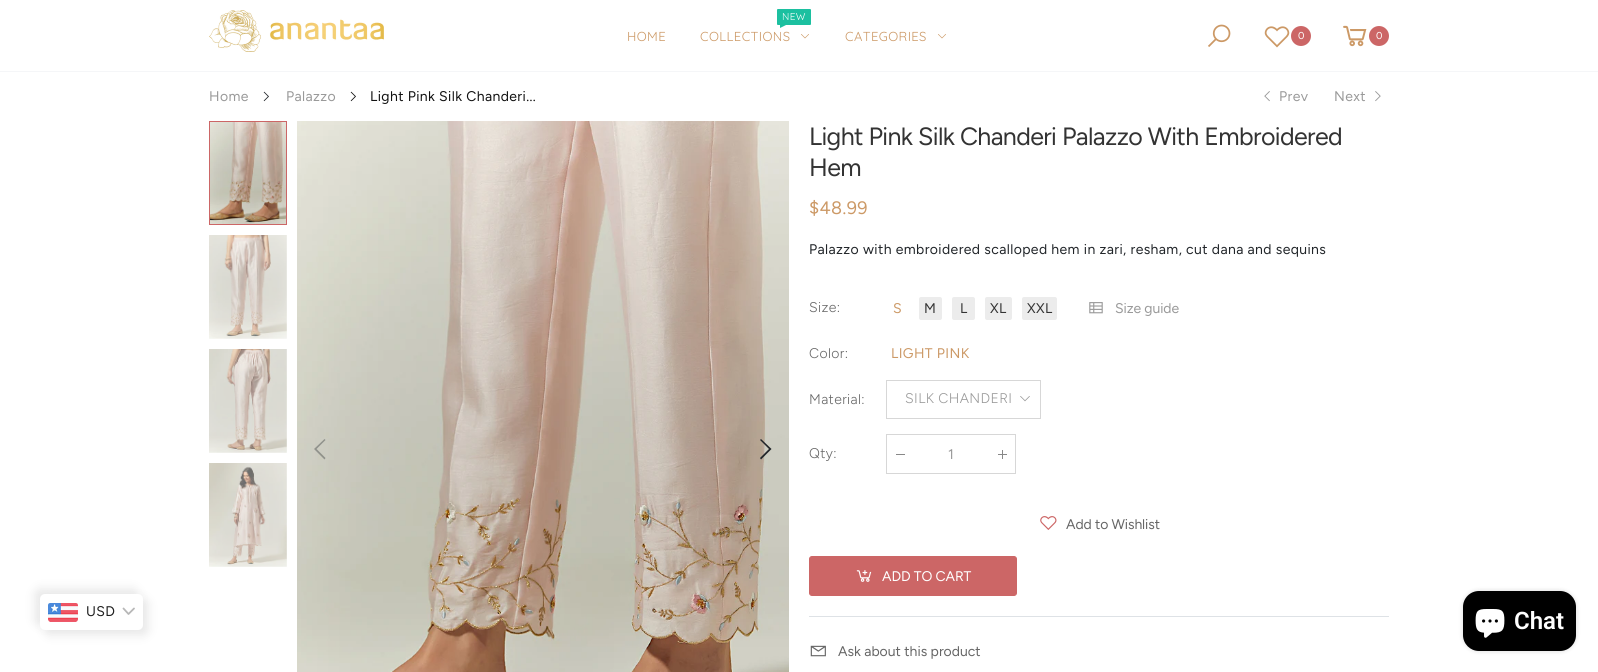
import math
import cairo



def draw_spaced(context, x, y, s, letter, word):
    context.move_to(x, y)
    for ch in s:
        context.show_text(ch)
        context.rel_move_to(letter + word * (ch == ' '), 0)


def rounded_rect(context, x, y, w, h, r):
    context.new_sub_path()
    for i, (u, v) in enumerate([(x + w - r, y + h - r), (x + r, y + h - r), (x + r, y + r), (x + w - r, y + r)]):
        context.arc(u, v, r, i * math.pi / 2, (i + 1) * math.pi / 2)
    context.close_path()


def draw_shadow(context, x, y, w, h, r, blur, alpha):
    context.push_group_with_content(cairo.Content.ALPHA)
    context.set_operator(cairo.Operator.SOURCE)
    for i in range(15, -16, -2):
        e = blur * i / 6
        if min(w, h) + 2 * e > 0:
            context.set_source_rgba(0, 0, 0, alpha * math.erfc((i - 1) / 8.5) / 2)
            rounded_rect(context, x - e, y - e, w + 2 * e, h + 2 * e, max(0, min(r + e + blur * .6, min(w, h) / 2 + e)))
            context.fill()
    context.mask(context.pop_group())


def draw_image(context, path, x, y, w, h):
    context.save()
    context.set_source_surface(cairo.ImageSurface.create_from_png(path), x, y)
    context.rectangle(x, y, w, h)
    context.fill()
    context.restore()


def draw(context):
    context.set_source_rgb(1, 1, 1)
    context.paint()
    context.set_source_rgb(232 / 255, 232 / 255, 232 / 255)
    draw_shadow(context, 35, 589, 103, 36, 5, 5, 1)
    draw_shadow(context, 45, 599, 103, 36, 5, 5, 1)
    context.set_source_rgb(1, 1, 1)
    rounded_rect(context, 40, 594, 103, 36, 5)
    context.fill()
    draw_image(context, "images/1.png", 48, 603, 30, 19)
    context.new_path()
    context.move_to(123.5, 608.5)
    context.line_to(128.5, 614)
    context.line_to(134, 608.5)
    context.set_source_rgb(183 / 255, 183 / 255, 183 / 255)
    context.set_line_width(1.8)
    context.set_line_cap(cairo.LineCap.ROUND)
    context.set_line_join(cairo.LineJoin.ROUND)
    context.stroke()
    draw_image(context, "images/2.png", 209, 10, 175, 42)
    context.set_source_rgb(28 / 255, 192 / 255, 160 / 255)
    rounded_rect(context, 777, 9, 34, 16, 1)
    context.fill()
    context.new_path()
    context.move_to(780, 23)
    context.line_to(790, 23)
    context.line_to(780, 28)
    context.close_path()
    context.fill()
    draw_image(context, "images/3.png", 801, 34, 8, 5)
    draw_image(context, "images/3.png", 938, 34, 8, 5)
    draw_image(context, "images/4.png", 1208, 24, 23, 23)
    draw_image(context, "images/5.png", 1264, 26, 26, 22)
    context.set_source_rgb(204 / 255, 102 / 255, 102 / 255)
    context.arc(1301, 36, 10, 0, 2 * math.pi)
    context.fill()
    draw_image(context, "images/6.png", 1343, 25, 24, 22)
    context.arc(1379, 36, 10, 0, 2 * math.pi)
    context.fill()
    context.set_source_rgb(245 / 255, 246 / 255, 248 / 255)
    context.rectangle(0, 71, 1598, 1)
    context.fill()
    draw_image(context, "images/7.png", 263, 91, 6, 11)
    draw_image(context, "images/8.png", 350, 91, 6, 11)
    draw_image(context, "images/9.png", 1264, 91, 6, 11)
    draw_image(context, "images/10.png", 1375, 91, 6, 11)
    draw_image(context, "images/11.png", 210, 122, 76, 102)
    context.rectangle(209.5, 121.5, 77, 103)
    context.set_source_rgb(204 / 255, 102 / 255, 102 / 255)
    context.set_line_width(1)
    context.set_line_cap(cairo.LineCap.BUTT)
    context.set_line_join(cairo.LineJoin.MITER)
    context.stroke()
    draw_image(context, "images/12.png", 209, 235, 78, 104)
    draw_image(context, "images/13.png", 209, 349, 78, 104)
    draw_image(context, "images/14.png", 209, 463, 78, 104)
    draw_image(context, "images/15.png", 297, 121, 492, 551)
    context.set_source_rgba(33 / 255, 37 / 255, 41 / 255, 0.35)
    context.new_path()
    context.move_to(324.5, 439)
    context.line_to(325.5, 440)
    context.line_to(316.5, 449)
    context.line_to(325.5, 458)
    context.line_to(324.5, 459.5)
    context.line_to(314, 449)
    context.close_path()
    context.fill()
    context.set_source_rgb(33 / 255, 37 / 255, 41 / 255)
    context.new_path()
    context.move_to(761, 439)
    context.line_to(771.5, 449)
    context.line_to(761, 459.5)
    context.line_to(760, 458)
    context.line_to(769, 449)
    context.line_to(760, 440)
    context.close_path()
    context.fill()
    context.set_source_rgb(236 / 255, 236 / 255, 236 / 255)
    rounded_rect(context, 919, 297, 23, 23, 2)
    context.fill()
    rounded_rect(context, 952, 297, 23, 23, 2)
    context.fill()
    rounded_rect(context, 985, 297, 27, 23, 2)
    context.fill()
    rounded_rect(context, 1022, 297, 35, 23, 2)
    context.fill()
    draw_image(context, "images/16.png", 1089, 302, 14, 12)
    context.rectangle(886.5, 380.5, 154, 38)
    context.set_source_rgb(215 / 255, 215 / 255, 215 / 255)
    context.stroke()
    draw_image(context, "images/17.png", 1020, 396, 10, 6)
    context.rectangle(886.5, 434.5, 129, 39)
    context.stroke()
    context.set_source_rgb(136 / 255, 136 / 255, 136 / 255)
    context.rectangle(896, 454, 9, 1)
    context.fill()
    context.rectangle(998, 454, 9, 1)
    context.fill()
    context.rectangle(1002, 450, 1, 9)
    context.fill()
    draw_image(context, "images/18.png", 1040, 516, 17, 14)
    context.set_source_rgb(204 / 255, 102 / 255, 102 / 255)
    rounded_rect(context, 809.5, 556.5, 207, 39, 2.5)
    context.fill_preserve()
    context.stroke()
    draw_image(context, "images/19.png", 856, 570, 16, 12)
    context.set_source_rgb(222 / 255, 226 / 255, 230 / 255)
    context.rectangle(809, 616, 580, 1)
    context.fill()
    draw_image(context, "images/20.png", 810, 645, 16, 12)
    context.set_source_rgb(0, 0, 0)
    draw_shadow(context, 1463, 591, 113, 60, 16, 2.5, 0.15)
    context.set_source_rgb(0, 0, 0)
    rounded_rect(context, 1463, 591, 113, 60, 16)
    context.fill()
    draw_image(context, "images/21.png", 1475, 609, 30, 29)
    context.select_font_face("Figtree")
    context.set_font_size(14)
    context.set_source_rgb(30 / 255, 30 / 255, 30 / 255)
    draw_spaced(context, 86, 616, "USD", 0.4, 0)
    context.select_font_face("Quicksand")
    context.set_font_size(13)
    context.set_source_rgb(204 / 255, 153 / 255, 102 / 255)
    draw_spaced(context, 627, 41, "HOME", 0.4, 0)
    context.set_font_size(10)
    context.set_source_rgb(1, 1, 1)
    draw_spaced(context, 782, 20, "NEW", 0.4, 0)
    context.set_font_size(13)
    context.set_source_rgb(204 / 255, 153 / 255, 102 / 255)
    draw_spaced(context, 700, 41, "COLLECTIONS", 0.4, 0)
    draw_spaced(context, 845, 41, "CATEGORIES", 0.4, 0)
    context.select_font_face("Figtree")
    context.set_font_size(10)
    context.set_source_rgb(1, 1, 1)
    draw_spaced(context, 1298, 39, "0", 0.4, 0)
    draw_spaced(context, 1376, 39, "0", 0.4, 0)
    context.set_font_size(14)
    context.set_source_rgb(153 / 255, 153 / 255, 153 / 255)
    draw_spaced(context, 209, 101, "Home", 0.4, 0)
    draw_spaced(context, 286, 101, "Palazzo", 0.4, 0)
    context.set_source_rgb(17 / 255, 17 / 255, 17 / 255)
    draw_spaced(context, 370, 101, "Light Pink Silk Chanderi...", 0.4, 0)
    context.set_source_rgb(153 / 255, 153 / 255, 153 / 255)
    draw_spaced(context, 1279, 101, "Prev", 0.4, 0)
    draw_spaced(context, 1334, 101, "Next", 0.4, 0)
    context.set_font_size(25)
    context.set_source_rgb(51 / 255, 51 / 255, 51 / 255)
    draw_spaced(context, 809, 145, "Light Pink Silk Chanderi Palazzo With Embroidered", -0.6, 0)
    draw_spaced(context, 809, 176, "Hem", -0.6, 0)
    context.set_font_size(18)
    context.set_source_rgb(204 / 255, 153 / 255, 102 / 255)
    draw_spaced(context, 809, 214, "$48.99", 0.4, 0)
    context.set_font_size(14)
    context.set_source_rgb(33 / 255, 37 / 255, 41 / 255)
    draw_spaced(context, 809, 254, "Palazzo with embroidered scalloped hem in zari, resham, cut dana and sequins", 0.4, 0)
    context.select_font_face("Figtree Light")
    context.set_source_rgb(102 / 255, 102 / 255, 102 / 255)
    draw_spaced(context, 809, 312, "Size:", 0.4, 0)
    context.select_font_face("Figtree")
    context.set_source_rgb(204 / 255, 153 / 255, 102 / 255)
    draw_spaced(context, 893, 313, "S", 0.4, 0)
    context.set_source_rgb(51 / 255, 51 / 255, 51 / 255)
    draw_spaced(context, 924, 313, "M", 0.4, 0)
    draw_spaced(context, 960, 313, "L", 0.4, 0)
    draw_spaced(context, 990, 313, "XL", 0.4, 0)
    draw_spaced(context, 1027, 313, "XXL", 0.4, 0)
    context.set_source_rgb(153 / 255, 153 / 255, 153 / 255)
    draw_spaced(context, 1115, 313, "Size guide", -0.1, 0)
    context.select_font_face("Figtree Light")
    context.set_source_rgb(102 / 255, 102 / 255, 102 / 255)
    draw_spaced(context, 809, 358, "Color:", 0.4, 0)
    context.select_font_face("Figtree")
    context.set_source_rgb(204 / 255, 153 / 255, 102 / 255)
    draw_spaced(context, 891, 358, "LIGHT PINK", 0.4, 0)
    context.select_font_face("Figtree Light")
    context.set_source_rgb(102 / 255, 102 / 255, 102 / 255)
    draw_spaced(context, 809, 404, "Material:", 0.4, 0)
    context.set_source_rgb(153 / 255, 153 / 255, 153 / 255)
    draw_spaced(context, 905, 403, "SILK CHANDERI", 0.4, 0)
    context.set_source_rgb(102 / 255, 102 / 255, 102 / 255)
    draw_spaced(context, 809, 458, "Qty:", 0.4, 0)
    context.select_font_face("Figtree")
    context.set_source_rgb(153 / 255, 153 / 255, 153 / 255)
    context.move_to(948, 459)
    context.show_text("1")
    context.set_source_rgb(102 / 255, 102 / 255, 102 / 255)
    draw_spaced(context, 1066, 529, "Add to Wishlist", -0.1, 0)
    context.set_source_rgb(1, 1, 1)
    draw_spaced(context, 882, 581, "ADD TO CART", -0.1, 0)
    context.set_source_rgb(102 / 255, 102 / 255, 102 / 255)
    context.move_to(838, 656)
    context.show_text("Ask about this product")
    context.select_font_face("Roboto SemiBold")
    context.set_font_size(24)
    context.set_source_rgb(1, 1, 1)
    context.move_to(1514, 629)
    context.show_text("Chat")


surface = cairo.ImageSurface(cairo.Format.RGB24, 1598, 672)
context = cairo.Context(surface)
options = cairo.FontOptions()
options.set_hint_metrics(cairo.HintMetrics.OFF)
options.set_hint_style(cairo.HintStyle.NONE)
context.set_font_options(options)
context.set_miter_limit(4)
draw(context)
surface.write_to_png("out.png")
